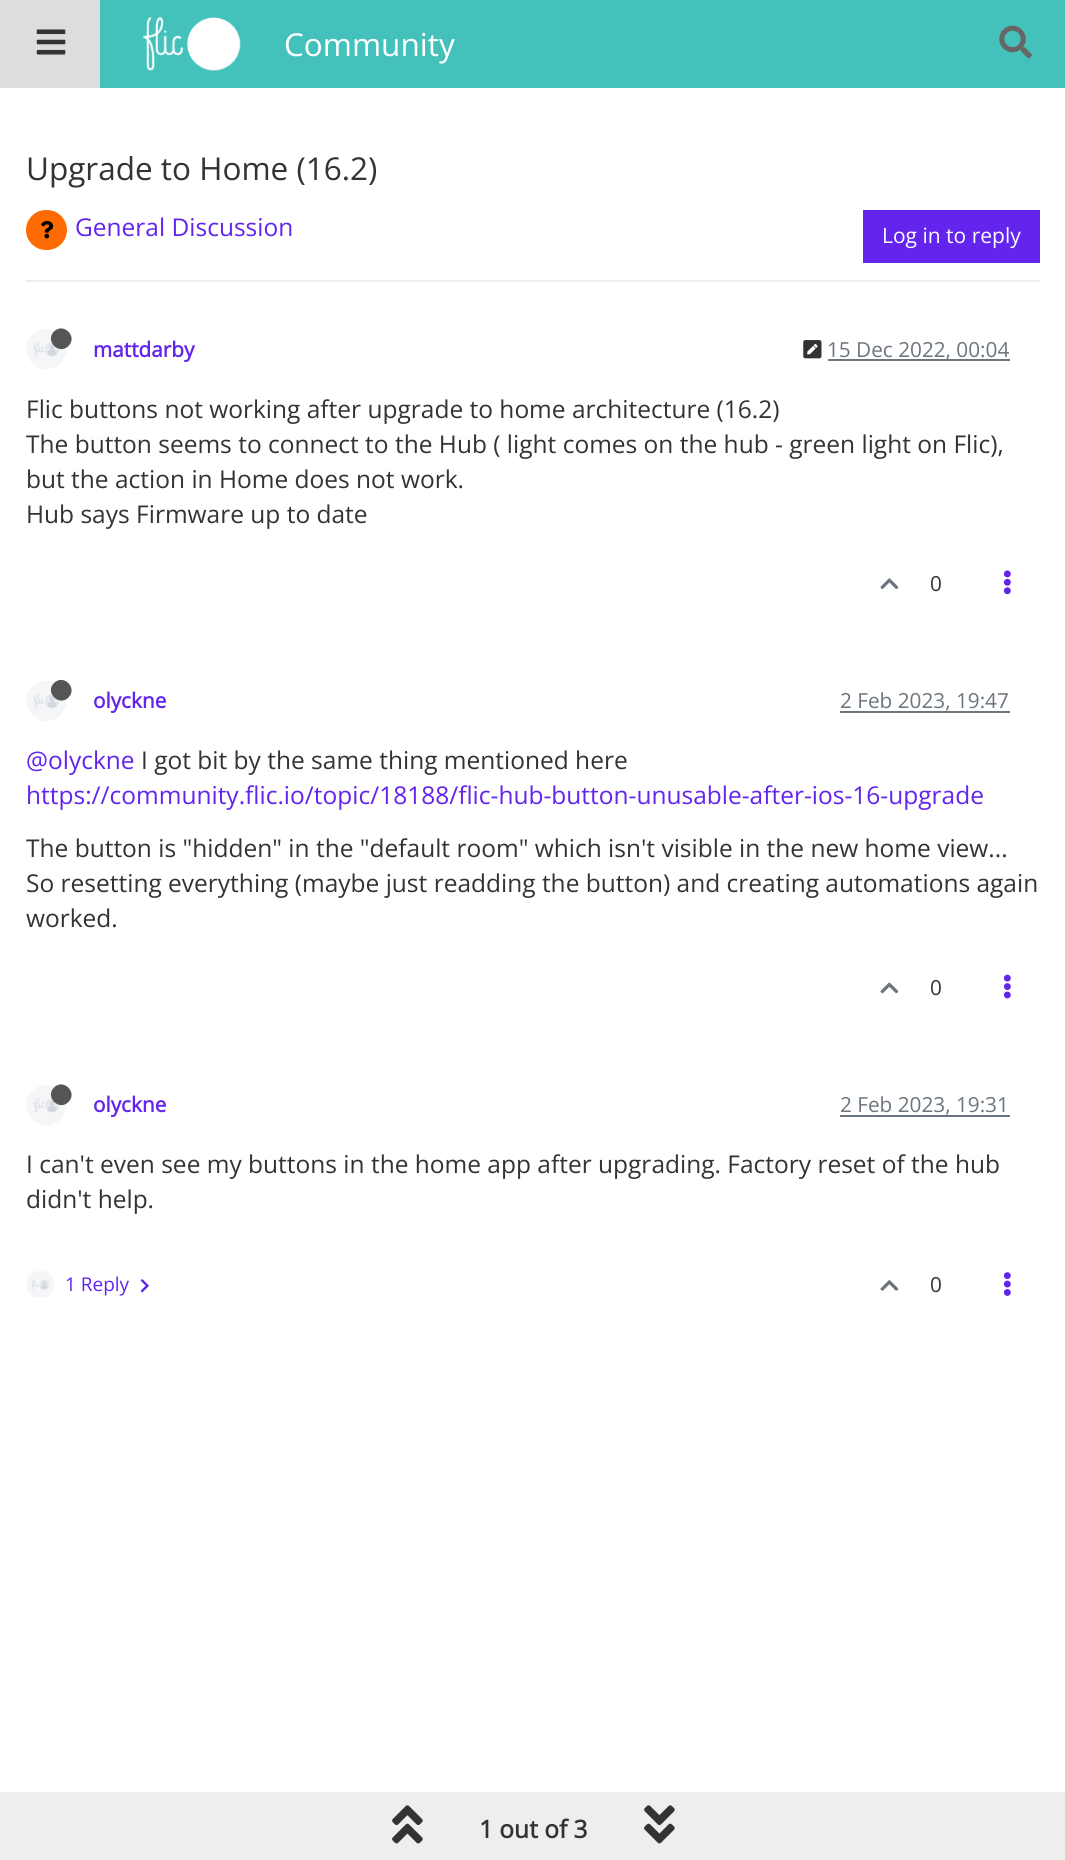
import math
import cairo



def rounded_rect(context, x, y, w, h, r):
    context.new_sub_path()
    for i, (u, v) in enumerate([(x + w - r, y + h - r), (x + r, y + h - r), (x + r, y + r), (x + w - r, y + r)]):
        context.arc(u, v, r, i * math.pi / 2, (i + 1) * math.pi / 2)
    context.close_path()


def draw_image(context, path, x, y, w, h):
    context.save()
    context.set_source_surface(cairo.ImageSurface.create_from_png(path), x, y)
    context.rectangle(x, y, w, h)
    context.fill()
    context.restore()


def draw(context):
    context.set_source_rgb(1, 1, 1)
    context.paint()
    context.set_source_rgb(69 / 255, 193 / 255, 188 / 255)
    context.rectangle(100, 0, 965, 88)
    context.fill()
    context.set_source_rgb(221 / 255, 221 / 255, 221 / 255)
    context.rectangle(0, 0, 100, 88)
    context.fill()
    draw_image(context, "images/1.png", 36, 29, 30, 26)
    draw_image(context, "images/2.png", 143, 16, 98, 55)
    draw_image(context, "images/3.png", 999, 25, 33, 34)
    context.set_source_rgb(238 / 255, 238 / 255, 238 / 255)
    context.rectangle(26, 280, 1014, 2)
    context.fill()
    context.set_source_rgb(1, 107 / 255, 3 / 255)
    rounded_rect(context, 26, 210, 41, 40, 20)
    context.fill()
    draw_image(context, "images/4.png", 41, 220, 13, 19)
    context.set_source_rgb(99 / 255, 36 / 255, 238 / 255)
    context.rectangle(863, 210, 177, 53)
    context.fill()
    draw_image(context, "images/5.png", 26, 329, 40, 40)
    context.set_source_rgb(85 / 255, 85 / 255, 85 / 255)
    context.new_path()
    context.move_to(54, 331.5)
    context.curve_to(63.5, 322, 78, 336.5, 68.5, 346)
    context.curve_to(59, 355.5, 44.5, 341, 54, 331.5)
    context.close_path()
    context.fill()
    draw_image(context, "images/6.png", 803, 340, 19, 19)
    context.set_source_rgb(108 / 255, 117 / 255, 125 / 255)
    context.rectangle(828, 359, 182, 2)
    context.fill()
    draw_image(context, "images/7.png", 880, 578, 19, 12)
    draw_image(context, "images/8.png", 1003, 570, 8, 25)
    draw_image(context, "images/9.png", 26, 681, 40, 40)
    context.set_source_rgb(85 / 255, 85 / 255, 85 / 255)
    context.new_path()
    context.move_to(54, 683)
    context.curve_to(63.5, 673.5, 78, 688, 68.5, 697.5)
    context.curve_to(59, 707, 44.5, 692.5, 54, 683)
    context.close_path()
    context.fill()
    context.set_source_rgb(108 / 255, 117 / 255, 125 / 255)
    context.rectangle(840, 711, 170, 2)
    context.fill()
    draw_image(context, "images/10.png", 880, 982, 19, 12)
    draw_image(context, "images/11.png", 1003, 974, 8, 25)
    draw_image(context, "images/5.png", 26, 1085, 40, 40)
    context.set_source_rgb(85 / 255, 85 / 255, 85 / 255)
    context.new_path()
    context.move_to(54, 1087.5)
    context.curve_to(63.5, 1078, 78, 1092.5, 68.5, 1102)
    context.curve_to(59, 1111.5, 44.5, 1097, 54, 1087.5)
    context.close_path()
    context.fill()
    context.set_source_rgb(108 / 255, 117 / 255, 125 / 255)
    context.rectangle(840, 1115, 170, 2)
    context.fill()
    draw_image(context, "images/12.png", 26, 1271, 28, 27)
    draw_image(context, "images/13.png", 140, 1279, 9, 14)
    draw_image(context, "images/14.png", 880, 1280, 19, 11)
    draw_image(context, "images/15.png", 1003, 1272, 8, 24)
    context.set_source_rgb(238 / 255, 238 / 255, 238 / 255)
    context.rectangle(0, 1792, 1065, 68)
    context.fill()
    draw_image(context, "images/16.png", 392, 1805, 31, 39)
    draw_image(context, "images/17.png", 644, 1805, 31, 39)
    context.select_font_face("Open Sans")
    context.set_font_size(31.5)
    context.set_source_rgb(1, 1, 1)
    context.move_to(284, 56)
    context.show_text("Community")
    context.set_source_rgb(51 / 255, 51 / 255, 51 / 255)
    context.move_to(26, 180)
    context.show_text("Upgrade to Home (16.2)")
    context.set_font_size(24.5)
    context.set_source_rgb(99 / 255, 36 / 255, 238 / 255)
    context.move_to(75, 236)
    context.show_text("General Discussion")
    context.set_font_size(21)
    context.set_source_rgb(1, 1, 1)
    context.move_to(882, 243)
    context.show_text("Log in to reply")
    context.select_font_face("Open Sans", cairo.FontSlant.NORMAL, cairo.FontWeight.BOLD)
    context.set_font_size(20.75)
    context.set_source_rgb(99 / 255, 36 / 255, 238 / 255)
    context.move_to(93, 357)
    context.show_text("mattdarby")
    context.select_font_face("Open Sans")
    context.set_source_rgb(108 / 255, 117 / 255, 125 / 255)
    context.move_to(827, 357)
    context.show_text("15 Dec 2022, 00:04")
    context.set_font_size(24.5)
    context.set_source_rgb(51 / 255, 51 / 255, 51 / 255)
    context.move_to(26, 418)
    context.show_text("Flic buttons not working after upgrade to home architecture (16.2)")
    context.move_to(26, 453)
    context.show_text("The button seems to connect to the Hub ( light comes on the hub - green light on Flic),")
    context.move_to(26, 488)
    context.show_text("but the action in Home does not work.")
    context.move_to(26, 523)
    context.show_text("Hub says Firmware up to date")
    context.set_font_size(20.75)
    context.move_to(930, 591)
    context.show_text("0")
    context.select_font_face("Open Sans", cairo.FontSlant.NORMAL, cairo.FontWeight.BOLD)
    context.set_source_rgb(99 / 255, 36 / 255, 238 / 255)
    context.move_to(93, 708)
    context.show_text("olyckne")
    context.select_font_face("Open Sans")
    context.set_source_rgb(108 / 255, 117 / 255, 125 / 255)
    context.move_to(840, 708)
    context.show_text("2 Feb 2023, 19:47")
    context.set_font_size(24.5)
    context.set_source_rgb(99 / 255, 36 / 255, 238 / 255)
    context.move_to(26, 769)
    context.show_text("@olyckne")
    context.set_source_rgb(51 / 255, 51 / 255, 51 / 255)
    context.move_to(141, 769)
    context.show_text("I got bit by the same thing mentioned here")
    context.set_source_rgb(99 / 255, 36 / 255, 238 / 255)
    context.move_to(26, 804)
    context.show_text("https://community.flic.io/topic/18188/flic-hub-button-unusable-after-ios-16-upgrade")
    context.set_source_rgb(51 / 255, 51 / 255, 51 / 255)
    context.move_to(26, 857)
    context.show_text("The button is \"hidden\" in the \"default room\" which isn't visible in the new home view...")
    context.move_to(26, 892)
    context.show_text("So resetting everything (maybe just readding the button) and creating automations again")
    context.move_to(26, 927)
    context.show_text("worked.")
    context.set_font_size(20.75)
    context.move_to(930, 995)
    context.show_text("0")
    context.select_font_face("Open Sans", cairo.FontSlant.NORMAL, cairo.FontWeight.BOLD)
    context.set_source_rgb(99 / 255, 36 / 255, 238 / 255)
    context.move_to(93, 1112)
    context.show_text("olyckne")
    context.select_font_face("Open Sans")
    context.set_source_rgb(108 / 255, 117 / 255, 125 / 255)
    context.move_to(840, 1112)
    context.show_text("2 Feb 2023, 19:31")
    context.set_font_size(24.5)
    context.set_source_rgb(51 / 255, 51 / 255, 51 / 255)
    context.move_to(26, 1173)
    context.show_text("I can't even see my buttons in the home app after upgrading. Factory reset of the hub")
    context.move_to(26, 1208)
    context.show_text("didn't help.")
    context.set_font_size(19)
    context.set_source_rgb(99 / 255, 36 / 255, 238 / 255)
    context.move_to(65, 1291)
    context.show_text("1 Reply")
    context.set_font_size(20.75)
    context.set_source_rgb(51 / 255, 51 / 255, 51 / 255)
    context.move_to(930, 1292)
    context.show_text("0")
    context.select_font_face("Open Sans", cairo.FontSlant.NORMAL, cairo.FontWeight.BOLD)
    context.set_font_size(24.5)
    context.move_to(479, 1838)
    context.show_text("1 out of 3")


surface = cairo.ImageSurface(cairo.Format.RGB24, 1065, 1860)
context = cairo.Context(surface)
options = cairo.FontOptions()
options.set_hint_metrics(cairo.HintMetrics.OFF)
options.set_hint_style(cairo.HintStyle.NONE)
context.set_font_options(options)
context.set_miter_limit(4)
draw(context)
surface.write_to_png("out.png")
